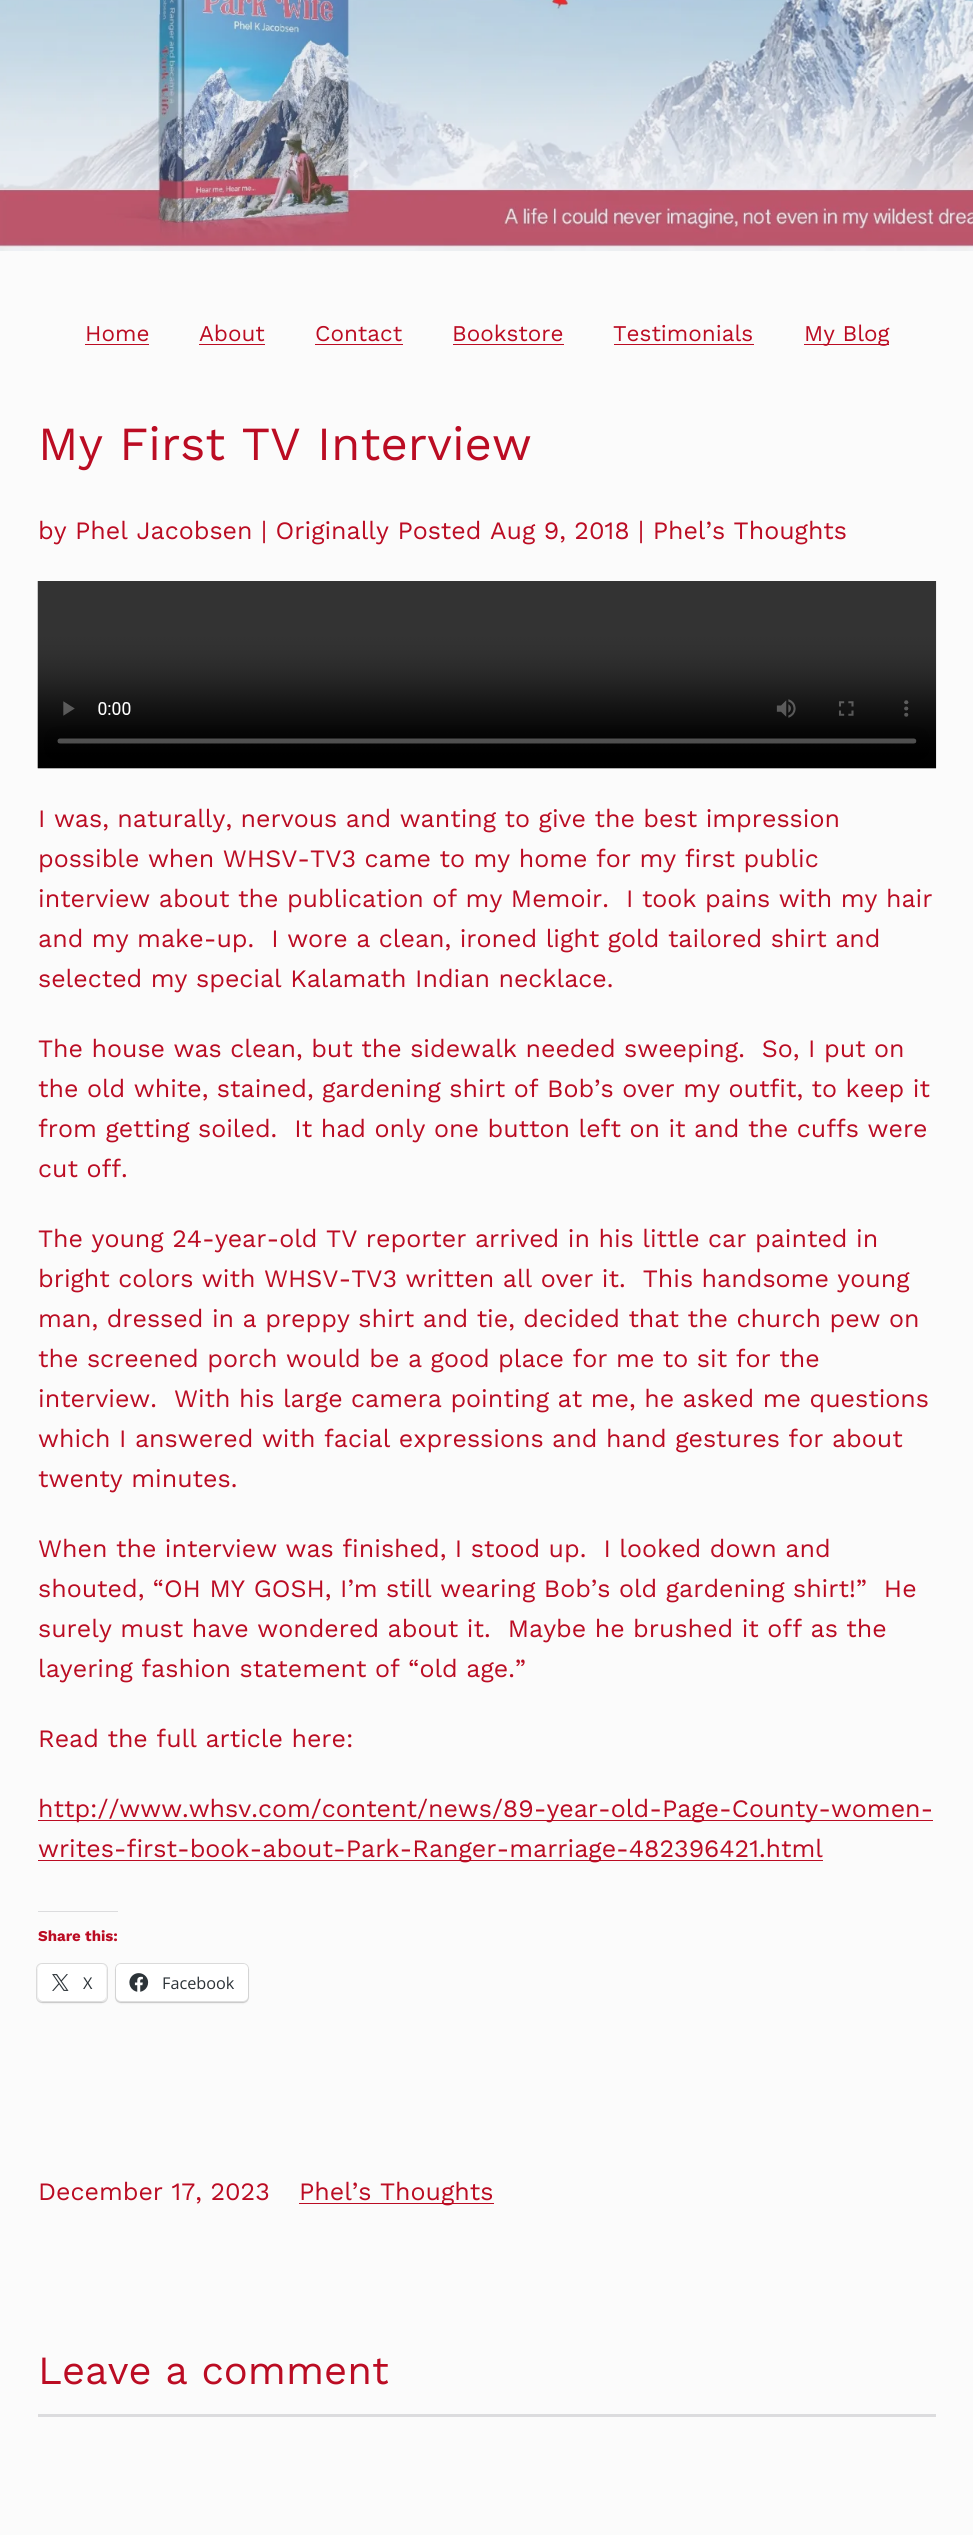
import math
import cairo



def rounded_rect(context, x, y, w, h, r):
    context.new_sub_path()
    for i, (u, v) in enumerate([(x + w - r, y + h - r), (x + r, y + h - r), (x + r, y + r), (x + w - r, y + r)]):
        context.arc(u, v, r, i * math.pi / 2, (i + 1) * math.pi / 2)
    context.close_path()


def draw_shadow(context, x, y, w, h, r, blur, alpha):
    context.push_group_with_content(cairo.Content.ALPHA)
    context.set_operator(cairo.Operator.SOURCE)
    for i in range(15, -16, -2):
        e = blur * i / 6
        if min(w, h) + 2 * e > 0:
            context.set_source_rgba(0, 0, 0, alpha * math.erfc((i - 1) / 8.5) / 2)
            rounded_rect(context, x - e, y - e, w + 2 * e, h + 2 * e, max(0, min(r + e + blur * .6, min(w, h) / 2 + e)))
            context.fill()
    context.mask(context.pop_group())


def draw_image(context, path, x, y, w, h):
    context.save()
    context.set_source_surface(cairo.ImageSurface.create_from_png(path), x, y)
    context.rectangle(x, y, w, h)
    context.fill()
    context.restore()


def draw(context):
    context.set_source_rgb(251 / 255, 251 / 255, 251 / 255)
    context.paint()
    draw_image(context, "images/1.png", 0, 0, 973, 251)
    context.set_source_rgb(187 / 255, 12 / 255, 35 / 255)
    context.rectangle(85, 344, 64, 1)
    context.fill()
    context.rectangle(199, 344, 66, 1)
    context.fill()
    context.rectangle(315, 344, 88, 1)
    context.fill()
    context.rectangle(453, 344, 111, 1)
    context.fill()
    context.rectangle(614, 344, 140, 1)
    context.fill()
    context.rectangle(804, 344, 85, 1)
    context.fill()
    draw_image(context, "images/2.png", 37, 581, 900, 188)
    context.rectangle(38, 1820, 895, 1)
    context.fill()
    context.rectangle(38, 1860, 785, 1)
    context.fill()
    context.set_source_rgb(220 / 255, 220 / 255, 222 / 255)
    context.rectangle(38, 1911, 80, 1)
    context.fill()
    rounded_rect(context, 36.5, 1963.5, 71, 39, 5.5)
    context.set_source_rgb(221 / 255, 221 / 255, 221 / 255)
    context.set_line_width(1)
    context.stroke()
    context.set_source_rgb(0, 0, 0)
    draw_shadow(context, 38, 1965, 68, 38, 5, 1, 0.12)
    context.set_source_rgb(1, 1, 1)
    rounded_rect(context, 38, 1964, 68, 37, 5)
    context.fill()
    draw_image(context, "images/3.png", 52, 1974, 17, 17)
    rounded_rect(context, 115.5, 1963.5, 133, 39, 5.5)
    context.set_source_rgb(221 / 255, 221 / 255, 221 / 255)
    context.stroke()
    context.set_source_rgb(0, 0, 0)
    draw_shadow(context, 116, 1965, 132, 38, 5, 1, 0.12)
    context.set_source_rgb(1, 1, 1)
    rounded_rect(context, 116, 1964, 132, 37, 5)
    context.fill()
    draw_image(context, "images/4.png", 129, 1973, 20, 19)
    context.set_source_rgb(187 / 255, 12 / 255, 35 / 255)
    context.rectangle(299, 2203, 195, 1)
    context.fill()
    context.set_source_rgb(220 / 255, 220 / 255, 222 / 255)
    context.rectangle(38, 2414, 898, 3)
    context.fill()
    context.select_font_face("Work Sans")
    context.set_font_size(22.5)
    context.set_source_rgb(187 / 255, 12 / 255, 35 / 255)
    context.move_to(85, 341)
    context.show_text("Home")
    context.move_to(199, 341)
    context.show_text("About")
    context.move_to(315, 341)
    context.show_text("Contact")
    context.move_to(452, 341)
    context.show_text("Bookstore")
    context.move_to(613, 341)
    context.show_text("Testimonials")
    context.move_to(804, 341)
    context.show_text("My Blog")
    context.set_font_size(47.5)
    context.move_to(38, 460)
    context.show_text("My First TV Interview")
    context.set_font_size(25)
    context.move_to(38, 539)
    context.show_text("by Phel Jacobsen | Originally Posted Aug 9, 2018 | Phel’s Thoughts")
    context.move_to(38, 827)
    context.show_text("I was, naturally, nervous and wanting to give the best impression")
    context.move_to(38, 867)
    context.show_text("possible when WHSV-TV3 came to my home for my first public")
    context.move_to(38, 907)
    context.show_text("interview about the publication of my Memoir.  I took pains with my hair")
    context.move_to(38, 947)
    context.show_text("and my make-up.  I wore a clean, ironed light gold tailored shirt and")
    context.move_to(38, 987)
    context.show_text("selected my special Kalamath Indian necklace.")
    context.move_to(38, 1057)
    context.show_text("The house was clean, but the sidewalk needed sweeping.  So, I put on")
    context.move_to(38, 1097)
    context.show_text("the old white, stained, gardening shirt of Bob’s over my outfit, to keep it")
    context.move_to(38, 1137)
    context.show_text("from getting soiled.  It had only one button left on it and the cuffs were")
    context.move_to(38, 1177)
    context.show_text("cut off.")
    context.move_to(38, 1247)
    context.show_text("The young 24-year-old TV reporter arrived in his little car painted in")
    context.move_to(38, 1287)
    context.show_text("bright colors with WHSV-TV3 written all over it.  This handsome young")
    context.move_to(38, 1327)
    context.show_text("man, dressed in a preppy shirt and tie, decided that the church pew on")
    context.move_to(38, 1367)
    context.show_text("the screened porch would be a good place for me to sit for the")
    context.move_to(38, 1407)
    context.show_text("interview.  With his large camera pointing at me, he asked me questions")
    context.move_to(38, 1447)
    context.show_text("which I answered with facial expressions and hand gestures for about")
    context.move_to(38, 1487)
    context.show_text("twenty minutes.")
    context.move_to(38, 1557)
    context.show_text("When the interview was finished, I stood up.  I looked down and")
    context.move_to(38, 1597)
    context.show_text("shouted, “OH MY GOSH, I’m still wearing Bob’s old gardening shirt!”  He")
    context.move_to(38, 1637)
    context.show_text("surely must have wondered about it.  Maybe he brushed it off as the")
    context.move_to(38, 1677)
    context.show_text("layering fashion statement of “old age.”")
    context.move_to(38, 1747)
    context.show_text("Read the full article here:")
    context.move_to(38, 1817)
    context.show_text("http://www.whsv.com/content/news/89-year-old-Page-County-women-")
    context.move_to(38, 1857)
    context.show_text("writes-first-book-about-Park-Ranger-marriage-482396421.html")
    context.select_font_face("Work Sans", cairo.FontSlant.NORMAL, cairo.FontWeight.BOLD)
    context.set_font_size(15)
    context.move_to(38, 1941)
    context.show_text("Share this:")
    context.select_font_face("Open Sans")
    context.set_font_size(16.25)
    context.set_source_rgb(44 / 255, 51 / 255, 56 / 255)
    context.move_to(83, 1989)
    context.show_text("X")
    context.move_to(162, 1989)
    context.show_text("Facebook")
    context.select_font_face("Work Sans")
    context.set_font_size(25)
    context.set_source_rgb(187 / 255, 12 / 255, 35 / 255)
    context.move_to(38, 2200)
    context.show_text("December 17, 2023")
    context.move_to(299, 2200)
    context.show_text("Phel’s Thoughts")
    context.set_font_size(40)
    context.move_to(38, 2384)
    context.show_text("Leave a comment")


surface = cairo.ImageSurface(cairo.Format.RGB24, 973, 2535)
context = cairo.Context(surface)
options = cairo.FontOptions()
options.set_hint_metrics(cairo.HintMetrics.OFF)
options.set_hint_style(cairo.HintStyle.NONE)
context.set_font_options(options)
context.set_miter_limit(4)
draw(context)
surface.write_to_png("out.png")
